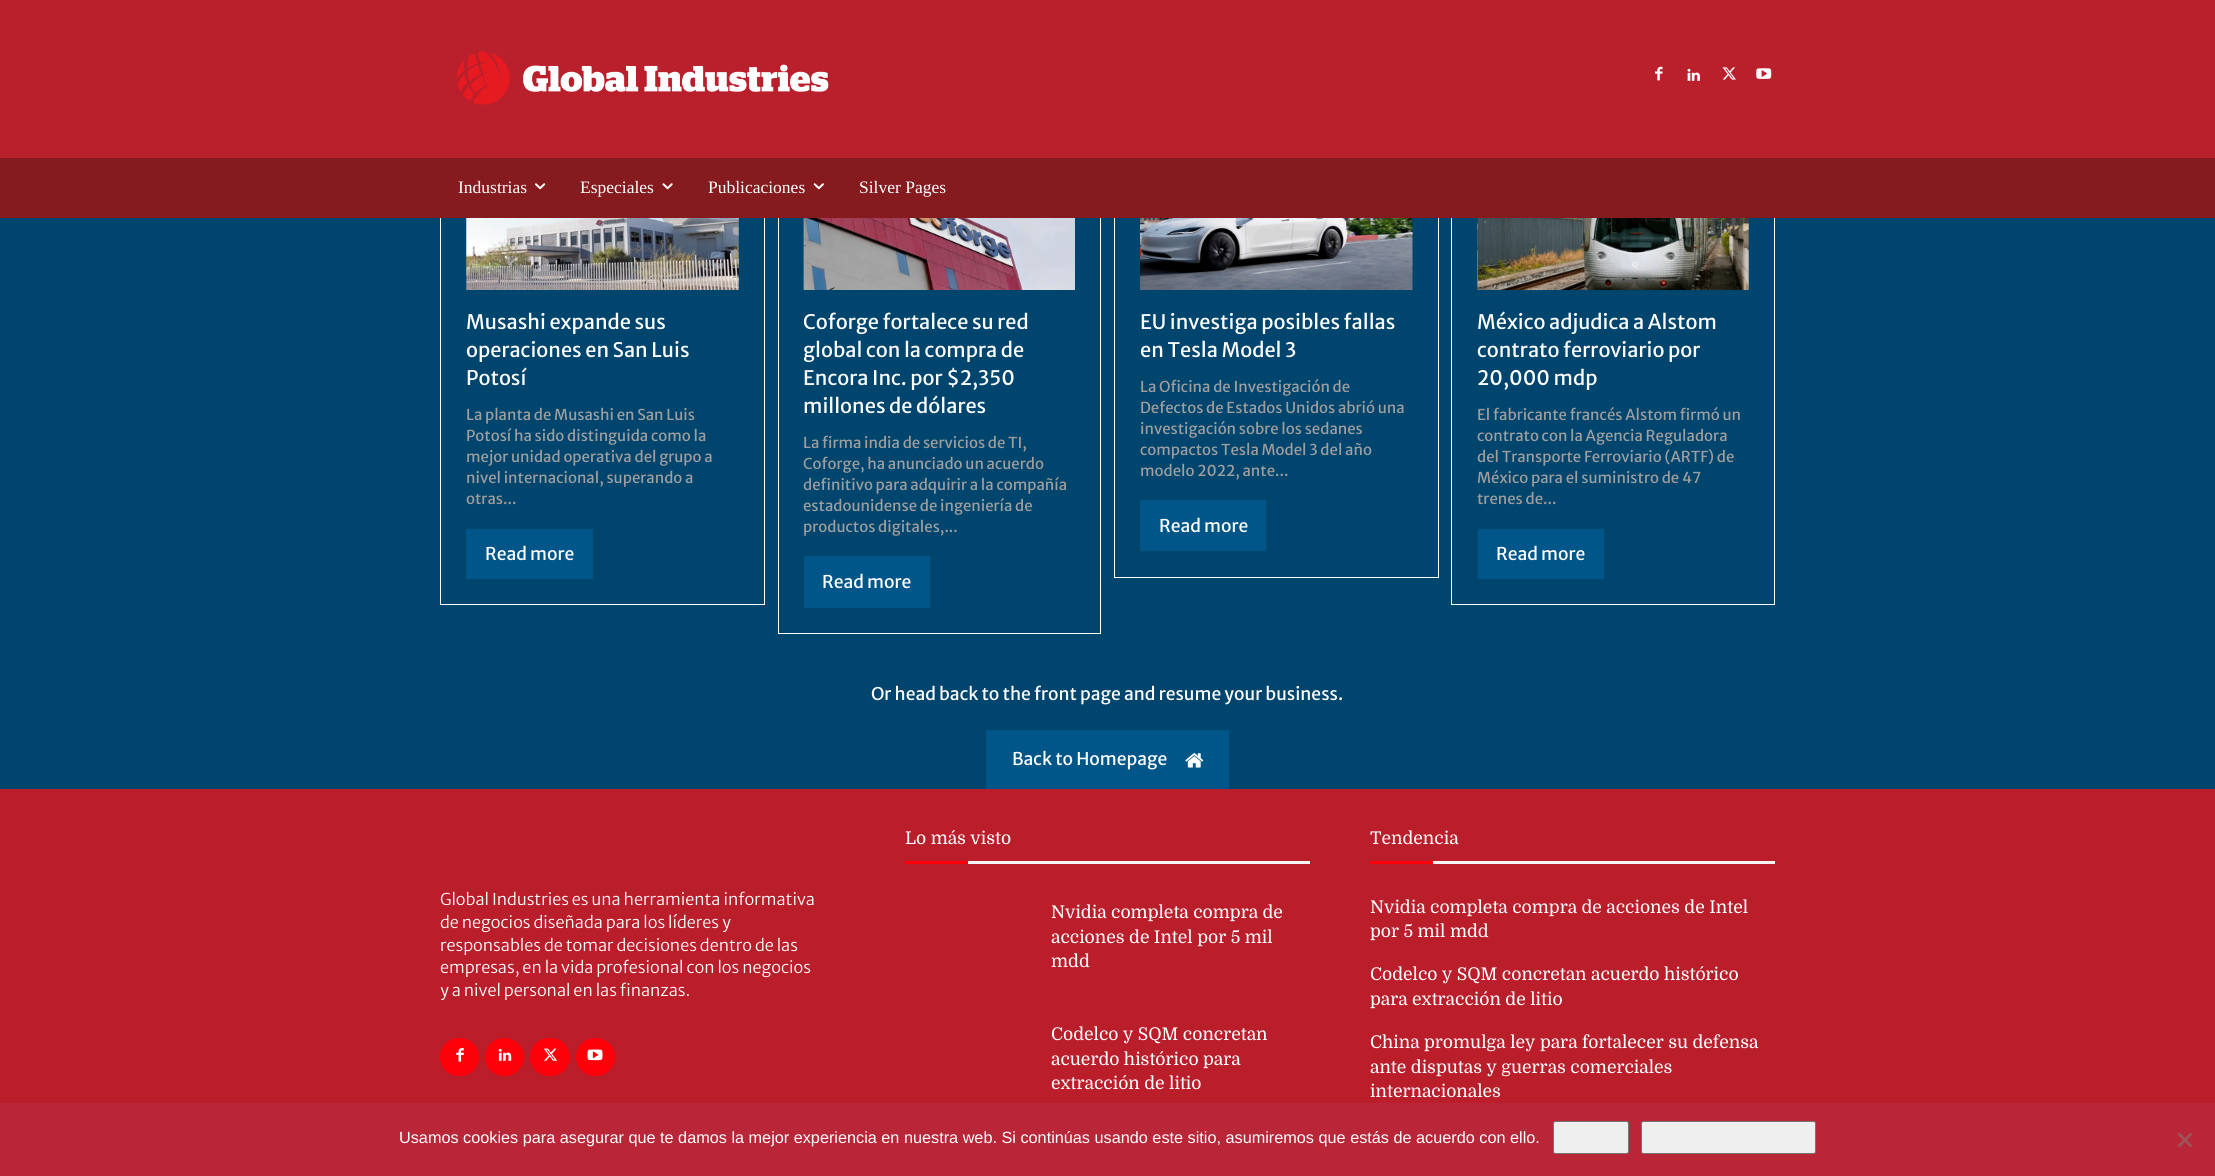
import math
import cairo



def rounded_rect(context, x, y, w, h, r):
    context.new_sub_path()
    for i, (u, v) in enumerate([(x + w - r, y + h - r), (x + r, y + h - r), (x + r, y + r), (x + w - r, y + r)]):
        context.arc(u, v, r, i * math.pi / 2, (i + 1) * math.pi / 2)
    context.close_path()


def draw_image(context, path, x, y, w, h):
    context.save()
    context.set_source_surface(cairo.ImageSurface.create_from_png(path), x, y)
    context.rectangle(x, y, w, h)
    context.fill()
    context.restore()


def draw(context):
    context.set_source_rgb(0, 69 / 255, 110 / 255)
    context.paint()
    context.rectangle(440.5, 128.5, 324, 476)
    context.set_source_rgb(1, 1, 1)
    context.set_line_width(1)
    context.stroke()
    context.rectangle(778.5, 128.5, 322, 505)
    context.stroke()
    context.rectangle(1114.5, 128.5, 324, 449)
    context.stroke()
    context.rectangle(1451.5, 128.5, 323, 476)
    context.stroke()
    context.set_source_rgb(186 / 255, 31 / 255, 44 / 255)
    context.rectangle(0, 0, 2215, 158)
    context.fill()
    draw_image(context, "images/1.png", 456, 51, 373, 54)
    draw_image(context, "images/2.png", 1655, 66, 8, 15)
    draw_image(context, "images/3.png", 1687, 68, 13, 13)
    draw_image(context, "images/4.png", 1722, 67, 14, 13)
    draw_image(context, "images/5.png", 1756, 68, 16, 11)
    context.set_source_rgb(133 / 255, 27 / 255, 31 / 255)
    context.rectangle(0, 158, 2215, 60)
    context.fill()
    draw_image(context, "images/6.png", 535, 183, 11, 7)
    draw_image(context, "images/7.png", 662, 183, 11, 7)
    draw_image(context, "images/8.png", 813, 183, 11, 7)
    draw_image(context, "images/9.png", 466, 218, 273, 72)
    context.set_source_rgb(0, 86 / 255, 137 / 255)
    context.rectangle(466, 529, 127, 50)
    context.fill()
    draw_image(context, "images/10.png", 803, 218, 272, 72)
    context.rectangle(804, 556, 126, 52)
    context.fill()
    draw_image(context, "images/11.png", 1140, 218, 273, 72)
    context.rectangle(1140, 500, 126, 51)
    context.fill()
    draw_image(context, "images/12.png", 1477, 218, 272, 72)
    context.rectangle(1478, 529, 126, 50)
    context.fill()
    context.rectangle(986, 730, 243, 59)
    context.fill()
    draw_image(context, "images/13.png", 1185, 753, 19, 15)
    context.set_source_rgb(186 / 255, 30 / 255, 43 / 255)
    context.rectangle(0, 789, 2215, 314)
    context.fill()
    context.set_source_rgb(1, 0, 10 / 255)
    rounded_rect(context, 440, 1038, 39, 38, 19)
    context.fill()
    draw_image(context, "images/14.png", 456, 1048, 8, 14)
    rounded_rect(context, 485, 1038, 39, 38, 19)
    context.fill()
    draw_image(context, "images/15.png", 498, 1048, 14, 13)
    rounded_rect(context, 530, 1038, 40, 38, 19)
    context.fill()
    draw_image(context, "images/16.png", 543, 1048, 15, 13)
    rounded_rect(context, 576, 1038, 39, 38, 19)
    context.fill()
    draw_image(context, "images/17.png", 587, 1049, 16, 12)
    context.rectangle(905, 861, 63, 3)
    context.fill()
    context.set_source_rgb(245 / 255, 245 / 255, 245 / 255)
    context.rectangle(968, 861, 342, 3)
    context.fill()
    context.set_source_rgb(1, 0, 10 / 255)
    context.rectangle(1370, 861, 63, 3)
    context.fill()
    context.set_source_rgb(245 / 255, 245 / 255, 245 / 255)
    context.rectangle(1433, 861, 342, 3)
    context.fill()
    context.set_source_rgb(184 / 255, 38 / 255, 56 / 255)
    context.rectangle(0, 1103, 2215, 73)
    context.fill()
    context.set_source_rgb(239 / 255, 239 / 255, 239 / 255)
    rounded_rect(context, 1553.5, 1121.5, 75, 32, 2)
    context.fill_preserve()
    context.set_source_rgb(118 / 255, 118 / 255, 118 / 255)
    context.stroke()
    context.set_source_rgb(239 / 255, 239 / 255, 239 / 255)
    rounded_rect(context, 1641.5, 1121.5, 174, 32, 2)
    context.fill_preserve()
    context.set_source_rgb(118 / 255, 118 / 255, 118 / 255)
    context.stroke()
    context.set_source_rgb(156 / 255, 83 / 255, 92 / 255)
    context.new_path()
    context.move_to(2190.5, 1132.5)
    context.line_to(2192.5, 1134.5)
    context.line_to(2179.5, 1147.5)
    context.line_to(2177.5, 1145.5)
    context.close_path()
    context.fill()
    context.new_path()
    context.move_to(2177.5, 1134.5)
    context.line_to(2179.5, 1132.5)
    context.line_to(2192.5, 1145.5)
    context.line_to(2190.5, 1147.5)
    context.close_path()
    context.fill()
    context.select_font_face("Liberation Serif")
    context.set_font_size(17.5)
    context.set_source_rgb(1, 1, 1)
    context.move_to(458, 193)
    context.show_text("Industrias")
    context.move_to(580, 193)
    context.show_text("Especiales")
    context.move_to(708, 193)
    context.show_text("Publicaciones")
    context.move_to(859, 193)
    context.show_text("Silver Pages")
    context.select_font_face("Merriweather Sans")
    context.set_font_size(20)
    context.move_to(466, 329)
    context.show_text("Musashi expande sus")
    context.move_to(466, 357)
    context.show_text("operaciones en San Luis")
    context.move_to(466, 385)
    context.show_text("Potosí")
    context.set_font_size(15)
    context.set_source_rgb(158 / 255, 158 / 255, 158 / 255)
    context.move_to(466, 420)
    context.show_text("La planta de Musashi en San Luis")
    context.move_to(466, 441)
    context.show_text("Potosí ha sido distinguida como la")
    context.move_to(466, 462)
    context.show_text("mejor unidad operativa del grupo a")
    context.move_to(466, 483)
    context.show_text("nivel internacional, superando a")
    context.move_to(466, 504)
    context.show_text("otras...")
    context.set_font_size(17.5)
    context.set_source_rgb(1, 1, 1)
    context.move_to(485, 560)
    context.show_text("Read more")
    context.set_font_size(20)
    context.move_to(803, 329)
    context.show_text("Coforge fortalece su red")
    context.move_to(803, 357)
    context.show_text("global con la compra de")
    context.move_to(803, 385)
    context.show_text("Encora Inc. por $2,350")
    context.move_to(803, 413)
    context.show_text("millones de dólares")
    context.set_font_size(15)
    context.set_source_rgb(158 / 255, 158 / 255, 158 / 255)
    context.move_to(803, 448)
    context.show_text("La firma india de servicios de TI,")
    context.move_to(803, 469)
    context.show_text("Coforge, ha anunciado un acuerdo")
    context.move_to(803, 490)
    context.show_text("definitivo para adquirir a la compañía")
    context.move_to(803, 511)
    context.show_text("estadounidense de ingeniería de")
    context.move_to(803, 532)
    context.show_text("productos digitales,...")
    context.set_font_size(17.5)
    context.set_source_rgb(1, 1, 1)
    context.move_to(822, 588)
    context.show_text("Read more")
    context.set_font_size(20)
    context.move_to(1140, 329)
    context.show_text("EU investiga posibles fallas")
    context.move_to(1140, 357)
    context.show_text("en Tesla Model 3")
    context.set_font_size(15)
    context.set_source_rgb(158 / 255, 158 / 255, 158 / 255)
    context.move_to(1140, 392)
    context.show_text("La Oficina de Investigación de")
    context.move_to(1140, 413)
    context.show_text("Defectos de Estados Unidos abrió una")
    context.move_to(1140, 434)
    context.show_text("investigación sobre los sedanes")
    context.move_to(1140, 455)
    context.show_text("compactos Tesla Model 3 del año")
    context.move_to(1140, 476)
    context.show_text("modelo 2022, ante...")
    context.set_font_size(17.5)
    context.set_source_rgb(1, 1, 1)
    context.move_to(1159, 532)
    context.show_text("Read more")
    context.set_font_size(20)
    context.move_to(1477, 329)
    context.show_text("México adjudica a Alstom")
    context.move_to(1477, 357)
    context.show_text("contrato ferroviario por")
    context.move_to(1477, 385)
    context.show_text("20,000 mdp")
    context.set_font_size(15)
    context.set_source_rgb(158 / 255, 158 / 255, 158 / 255)
    context.move_to(1477, 420)
    context.show_text("El fabricante francés Alstom firmó un")
    context.move_to(1477, 441)
    context.show_text("contrato con la Agencia Reguladora")
    context.move_to(1477, 462)
    context.show_text("del Transporte Ferroviario (ARTF) de")
    context.move_to(1477, 483)
    context.show_text("México para el suministro de 47")
    context.move_to(1477, 504)
    context.show_text("trenes de...")
    context.set_font_size(17.5)
    context.set_source_rgb(1, 1, 1)
    context.move_to(1496, 560)
    context.show_text("Read more")
    context.move_to(871, 700)
    context.show_text("Or head back to the front page and resume your business.")
    context.move_to(1012, 765)
    context.show_text("Back to Homepage")
    context.select_font_face("Merriweather Sans Light")
    context.set_font_size(16.25)
    context.move_to(440, 905)
    context.show_text("Global Industries es una herramienta informativa")
    context.move_to(440, 928)
    context.show_text("de negocios diseñada para los líderes y")
    context.move_to(440, 951)
    context.show_text("responsables de tomar decisiones dentro de las")
    context.move_to(440, 973)
    context.show_text("empresas, en la vida profesional con los negocios")
    context.move_to(440, 996)
    context.show_text("y a nivel personal en las finanzas.")
    context.select_font_face("Domine")
    context.set_font_size(17.5)
    context.move_to(905, 844)
    context.show_text("Lo más visto")
    context.move_to(1051, 918)
    context.show_text("Nvidia completa compra de")
    context.move_to(1051, 943)
    context.show_text("acciones de Intel por 5 mil")
    context.move_to(1051, 967)
    context.show_text("mdd")
    context.move_to(1051, 1040)
    context.show_text("Codelco y SQM concretan")
    context.move_to(1051, 1065)
    context.show_text("acuerdo histórico para")
    context.move_to(1051, 1089)
    context.show_text("extracción de litio")
    context.move_to(1370, 844)
    context.show_text("Tendencia")
    context.move_to(1370, 913)
    context.show_text("Nvidia completa compra de acciones de Intel")
    context.move_to(1370, 937)
    context.show_text("por 5 mil mdd")
    context.move_to(1370, 980)
    context.show_text("Codelco y SQM concretan acuerdo histórico")
    context.move_to(1370, 1005)
    context.show_text("para extracción de litio")
    context.move_to(1370, 1048)
    context.show_text("China promulga ley para fortalecer su defensa")
    context.move_to(1370, 1073)
    context.show_text("ante disputas y guerras comerciales")
    context.move_to(1370, 1097)
    context.show_text("internacionales")
    context.select_font_face("Liberation Sans")
    context.set_font_size(16.25)
    context.move_to(399, 1143)
    context.show_text("Usamos cookies para asegurar que te damos la mejor experiencia en nuestra web. Si continúas usando este sitio, asumiremos que estás de acuerdo con ello.")


surface = cairo.ImageSurface(cairo.Format.RGB24, 2215, 1176)
context = cairo.Context(surface)
options = cairo.FontOptions()
options.set_hint_metrics(cairo.HintMetrics.OFF)
options.set_hint_style(cairo.HintStyle.NONE)
context.set_font_options(options)
context.set_miter_limit(4)
draw(context)
surface.write_to_png("out.png")
